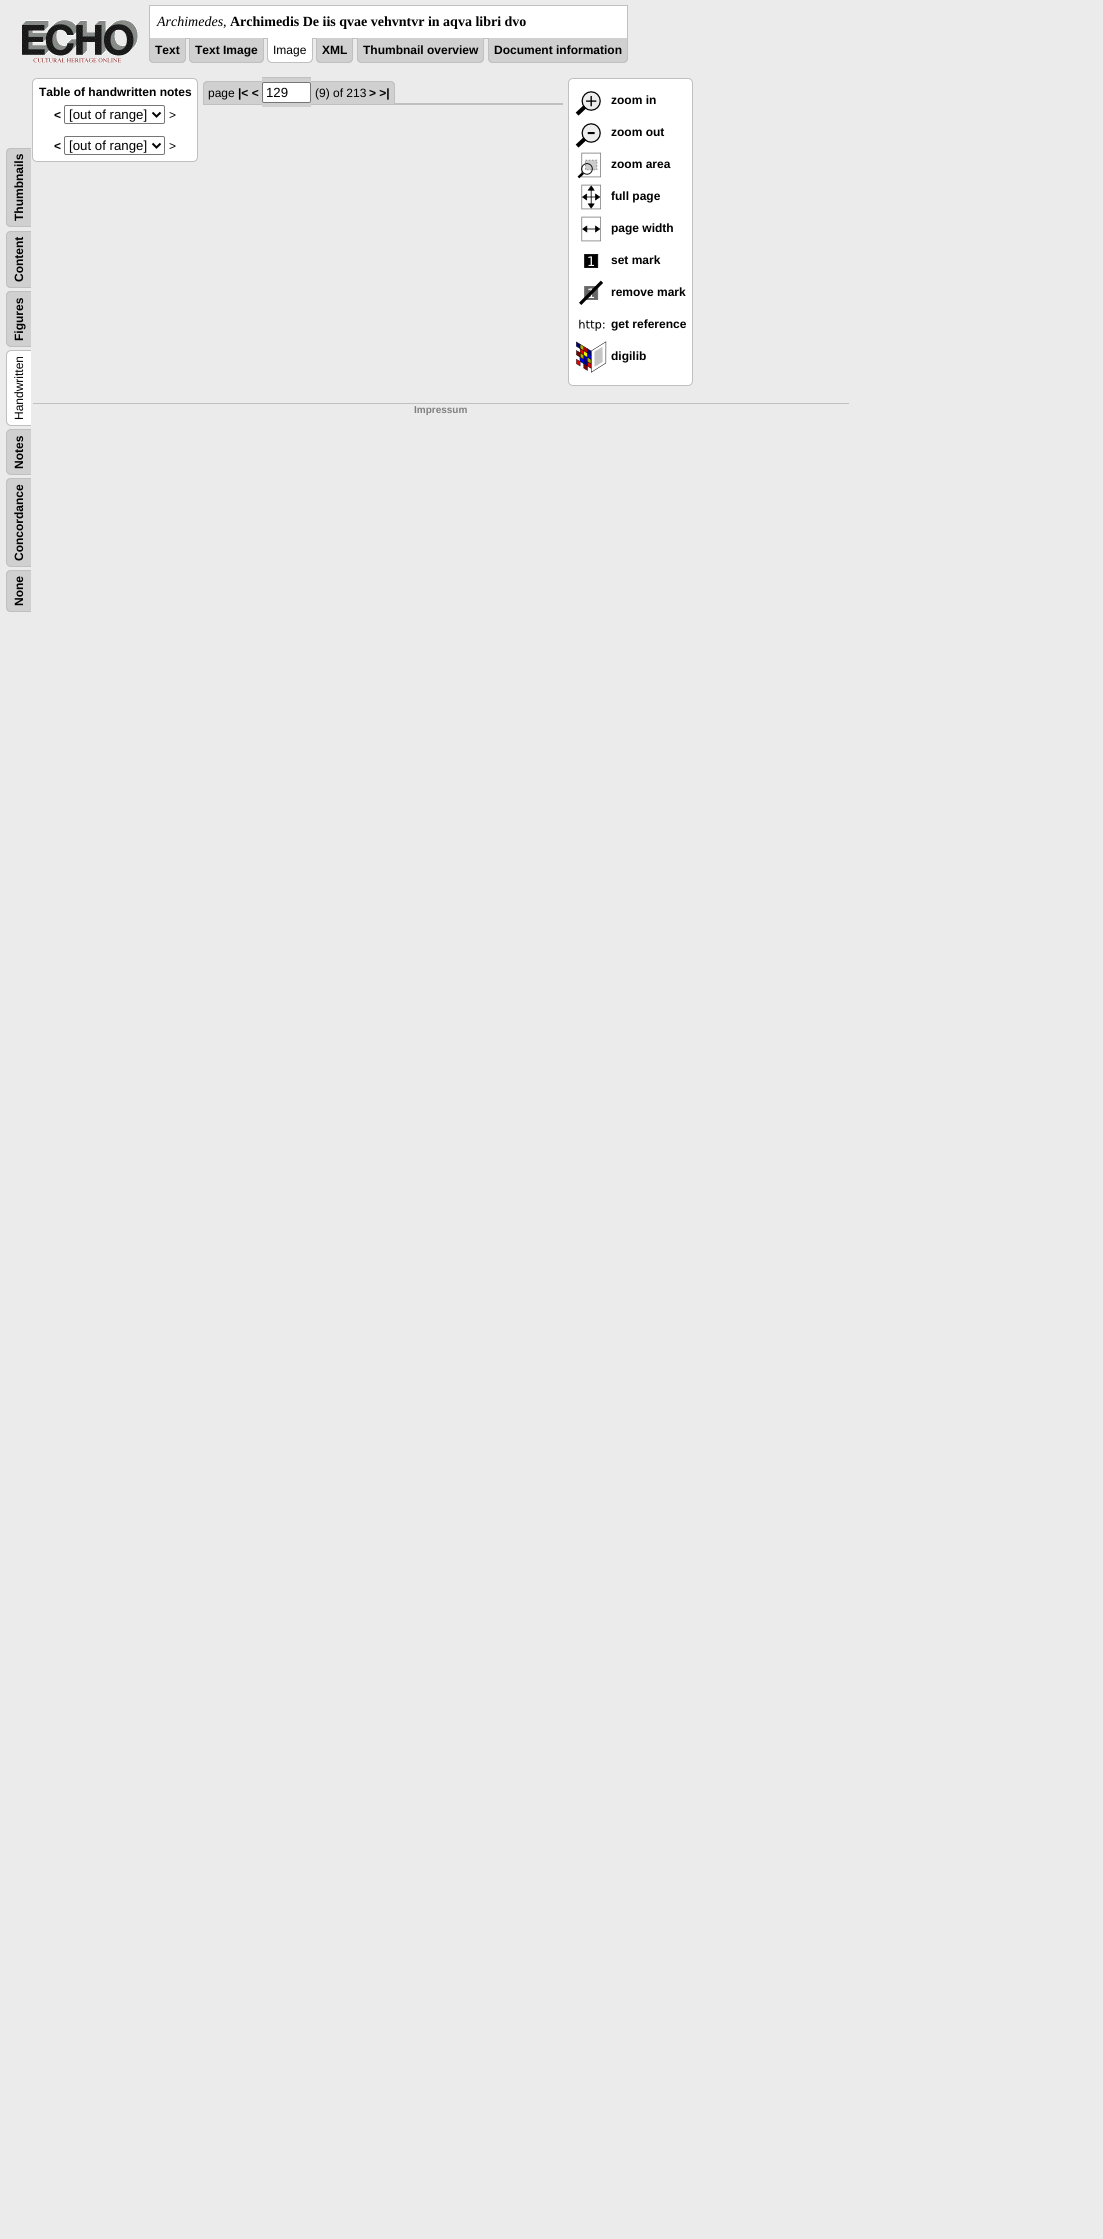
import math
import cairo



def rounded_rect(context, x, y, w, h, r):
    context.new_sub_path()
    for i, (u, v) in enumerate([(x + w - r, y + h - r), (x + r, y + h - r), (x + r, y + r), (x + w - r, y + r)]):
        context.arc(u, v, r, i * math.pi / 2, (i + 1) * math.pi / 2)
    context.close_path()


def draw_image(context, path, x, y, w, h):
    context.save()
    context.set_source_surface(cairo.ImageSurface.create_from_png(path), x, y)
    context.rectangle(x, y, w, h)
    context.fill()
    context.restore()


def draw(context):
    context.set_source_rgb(235 / 255, 235 / 255, 235 / 255)
    context.paint()
    draw_image(context, "images/1.png", 22, 20, 116, 43)
    context.set_source_rgb(1, 1, 1)
    context.rectangle(149.5, 5.5, 478, 33)
    context.fill_preserve()
    context.set_source_rgb(192 / 255, 192 / 255, 192 / 255)
    context.set_line_width(1)
    context.stroke()
    context.set_source_rgb(208 / 255, 208 / 255, 208 / 255)
    context.new_path()
    context.move_to(149, 38)
    context.line_to(186, 38)
    context.line_to(186, 58)
    context.curve_to(186, 61, 184, 63, 181, 63)
    context.line_to(154, 63)
    context.curve_to(151, 63, 149, 61, 149, 58)
    context.close_path()
    context.fill()
    context.set_source_rgb(192 / 255, 192 / 255, 192 / 255)
    context.set_fill_rule(cairo.FillRule.EVEN_ODD)
    context.new_path()
    context.move_to(149, 38)
    context.line_to(186, 38)
    context.line_to(186, 58)
    context.curve_to(186, 61, 184, 63, 181, 63)
    context.line_to(154, 63)
    context.curve_to(151, 63, 149, 61, 149, 58)
    context.close_path()
    context.move_to(150, 38)
    context.line_to(185, 38)
    context.line_to(185, 58)
    context.curve_to(185, 60, 183, 62, 181, 62)
    context.line_to(154, 62)
    context.curve_to(152, 62, 150, 60, 150, 58)
    context.close_path()
    context.fill()
    context.set_source_rgb(208 / 255, 208 / 255, 208 / 255)
    context.new_path()
    context.move_to(189, 38)
    context.line_to(264, 38)
    context.line_to(264, 58)
    context.curve_to(264, 61, 262, 63, 259, 63)
    context.line_to(194, 63)
    context.curve_to(191, 63, 189, 61, 189, 58)
    context.close_path()
    context.fill()
    context.set_source_rgb(192 / 255, 192 / 255, 192 / 255)
    context.new_path()
    context.move_to(189, 38)
    context.line_to(264, 38)
    context.line_to(264, 58)
    context.curve_to(264, 61, 262, 63, 259, 63)
    context.line_to(194, 63)
    context.curve_to(191, 63, 189, 61, 189, 58)
    context.close_path()
    context.move_to(190, 38)
    context.line_to(263, 38)
    context.line_to(263, 58)
    context.curve_to(263, 60, 261, 62, 259, 62)
    context.line_to(194, 62)
    context.curve_to(192, 62, 190, 60, 190, 58)
    context.close_path()
    context.fill()
    context.set_source_rgb(1, 1, 1)
    context.new_path()
    context.move_to(267, 38)
    context.line_to(313, 38)
    context.line_to(313, 58)
    context.curve_to(313, 61, 311, 63, 308, 63)
    context.line_to(272, 63)
    context.curve_to(269, 63, 267, 61, 267, 58)
    context.close_path()
    context.fill()
    context.set_source_rgb(192 / 255, 192 / 255, 192 / 255)
    context.new_path()
    context.move_to(267, 38)
    context.line_to(313, 38)
    context.line_to(313, 58)
    context.curve_to(313, 61, 311, 63, 308, 63)
    context.line_to(272, 63)
    context.curve_to(269, 63, 267, 61, 267, 58)
    context.close_path()
    context.move_to(268, 38)
    context.line_to(312, 38)
    context.line_to(312, 58)
    context.curve_to(312, 60, 310, 62, 308, 62)
    context.line_to(272, 62)
    context.curve_to(270, 62, 268, 60, 268, 58)
    context.close_path()
    context.fill()
    context.set_source_rgb(208 / 255, 208 / 255, 208 / 255)
    context.new_path()
    context.move_to(316, 38)
    context.line_to(353, 38)
    context.line_to(353, 58)
    context.curve_to(353, 61, 351, 63, 348, 63)
    context.line_to(321, 63)
    context.curve_to(318, 63, 316, 61, 316, 58)
    context.close_path()
    context.fill()
    context.set_source_rgb(192 / 255, 192 / 255, 192 / 255)
    context.new_path()
    context.move_to(316, 38)
    context.line_to(353, 38)
    context.line_to(353, 58)
    context.curve_to(353, 61, 351, 63, 348, 63)
    context.line_to(321, 63)
    context.curve_to(318, 63, 316, 61, 316, 58)
    context.close_path()
    context.move_to(317, 38)
    context.line_to(352, 38)
    context.line_to(352, 58)
    context.curve_to(352, 60, 350, 62, 348, 62)
    context.line_to(321, 62)
    context.curve_to(319, 62, 317, 60, 317, 58)
    context.close_path()
    context.fill()
    context.set_source_rgb(208 / 255, 208 / 255, 208 / 255)
    context.new_path()
    context.move_to(357, 38)
    context.line_to(484, 38)
    context.line_to(484, 58)
    context.curve_to(484, 61, 482, 63, 479, 63)
    context.line_to(362, 63)
    context.curve_to(359, 63, 357, 61, 357, 58)
    context.close_path()
    context.fill()
    context.set_source_rgb(192 / 255, 192 / 255, 192 / 255)
    context.new_path()
    context.move_to(357, 38)
    context.line_to(484, 38)
    context.line_to(484, 58)
    context.curve_to(484, 61, 482, 63, 479, 63)
    context.line_to(362, 63)
    context.curve_to(359, 63, 357, 61, 357, 58)
    context.close_path()
    context.move_to(358, 38)
    context.line_to(483, 38)
    context.line_to(483, 58)
    context.curve_to(483, 60, 481, 62, 479, 62)
    context.line_to(362, 62)
    context.curve_to(360, 62, 358, 60, 358, 58)
    context.close_path()
    context.fill()
    context.set_source_rgb(208 / 255, 208 / 255, 208 / 255)
    context.new_path()
    context.move_to(488, 38)
    context.line_to(628, 38)
    context.line_to(628, 58)
    context.curve_to(628, 61, 626, 63, 623, 63)
    context.line_to(493, 63)
    context.curve_to(490, 63, 488, 61, 488, 58)
    context.close_path()
    context.fill()
    context.set_source_rgb(192 / 255, 192 / 255, 192 / 255)
    context.new_path()
    context.move_to(488, 38)
    context.line_to(628, 38)
    context.line_to(628, 58)
    context.curve_to(628, 61, 626, 63, 623, 63)
    context.line_to(493, 63)
    context.curve_to(490, 63, 488, 61, 488, 58)
    context.close_path()
    context.move_to(489, 38)
    context.line_to(627, 38)
    context.line_to(627, 58)
    context.curve_to(627, 60, 625, 62, 623, 62)
    context.line_to(493, 62)
    context.curve_to(491, 62, 489, 60, 489, 58)
    context.close_path()
    context.fill()
    context.set_source_rgb(1, 1, 1)
    rounded_rect(context, 32.5, 78.5, 165, 83, 4.5)
    context.fill_preserve()
    context.set_source_rgb(192 / 255, 192 / 255, 192 / 255)
    context.stroke()
    rounded_rect(context, 64.5, 105.5, 100, 18, 1.5)
    context.set_source_rgb(118 / 255, 118 / 255, 118 / 255)
    context.stroke()
    context.new_path()
    context.move_to(152.5, 112.5)
    context.line_to(156.5, 116.5)
    context.line_to(160.5, 112.5)
    context.set_source_rgb(0, 0, 0)
    context.set_line_width(2)
    context.stroke()
    rounded_rect(context, 64.5, 136.5, 100, 18, 1.5)
    context.set_source_rgb(118 / 255, 118 / 255, 118 / 255)
    context.set_line_width(1)
    context.stroke()
    context.new_path()
    context.move_to(152.5, 143.5)
    context.line_to(156.5, 147.5)
    context.line_to(160.5, 143.5)
    context.set_source_rgb(0, 0, 0)
    context.set_line_width(2)
    context.stroke()
    context.set_source_rgb(208 / 255, 208 / 255, 208 / 255)
    context.set_fill_rule(cairo.FillRule.WINDING)
    context.new_path()
    context.move_to(6, 222)
    context.line_to(6, 153)
    context.curve_to(6, 150, 8, 148, 11, 148)
    context.line_to(31, 148)
    context.line_to(31, 227)
    context.line_to(11, 227)
    context.curve_to(8, 227, 6, 225, 6, 222)
    context.close_path()
    context.fill()
    context.set_source_rgb(192 / 255, 192 / 255, 192 / 255)
    context.set_fill_rule(cairo.FillRule.EVEN_ODD)
    context.new_path()
    context.move_to(6, 222)
    context.line_to(6, 153)
    context.curve_to(6, 150, 8, 148, 11, 148)
    context.line_to(31, 148)
    context.line_to(31, 227)
    context.line_to(11, 227)
    context.curve_to(8, 227, 6, 225, 6, 222)
    context.close_path()
    context.move_to(7, 222)
    context.line_to(7, 153)
    context.curve_to(7, 151, 9, 149, 11, 149)
    context.line_to(31, 149)
    context.line_to(31, 226)
    context.line_to(11, 226)
    context.curve_to(9, 226, 7, 224, 7, 222)
    context.close_path()
    context.fill()
    context.set_source_rgb(208 / 255, 208 / 255, 208 / 255)
    context.set_fill_rule(cairo.FillRule.WINDING)
    context.new_path()
    context.move_to(6, 283)
    context.line_to(6, 236)
    context.curve_to(6, 233, 8, 231, 11, 231)
    context.line_to(31, 231)
    context.line_to(31, 288)
    context.line_to(11, 288)
    context.curve_to(8, 288, 6, 286, 6, 283)
    context.close_path()
    context.fill()
    context.set_source_rgb(192 / 255, 192 / 255, 192 / 255)
    context.set_fill_rule(cairo.FillRule.EVEN_ODD)
    context.new_path()
    context.move_to(6, 283)
    context.line_to(6, 236)
    context.curve_to(6, 233, 8, 231, 11, 231)
    context.line_to(31, 231)
    context.line_to(31, 288)
    context.line_to(11, 288)
    context.curve_to(8, 288, 6, 286, 6, 283)
    context.close_path()
    context.move_to(7, 283)
    context.line_to(7, 236)
    context.curve_to(7, 233, 9, 232, 11, 232)
    context.line_to(31, 232)
    context.line_to(31, 287)
    context.line_to(11, 287)
    context.curve_to(9, 287, 7, 285, 7, 283)
    context.close_path()
    context.fill()
    context.set_source_rgb(208 / 255, 208 / 255, 208 / 255)
    context.set_fill_rule(cairo.FillRule.WINDING)
    context.new_path()
    context.move_to(6, 342)
    context.line_to(6, 296)
    context.curve_to(6, 293, 8, 291, 11, 291)
    context.line_to(31, 291)
    context.line_to(31, 347)
    context.line_to(11, 347)
    context.curve_to(8, 347, 6, 344, 6, 342)
    context.close_path()
    context.fill()
    context.set_source_rgb(192 / 255, 192 / 255, 192 / 255)
    context.set_fill_rule(cairo.FillRule.EVEN_ODD)
    context.new_path()
    context.move_to(6, 342)
    context.line_to(6, 296)
    context.curve_to(6, 293, 8, 291, 11, 291)
    context.line_to(31, 291)
    context.line_to(31, 347)
    context.line_to(11, 347)
    context.curve_to(8, 347, 6, 344, 6, 342)
    context.close_path()
    context.move_to(7, 342)
    context.line_to(7, 296)
    context.curve_to(7, 294, 9, 292, 11, 292)
    context.line_to(31, 292)
    context.line_to(31, 346)
    context.line_to(11, 346)
    context.curve_to(9, 346, 7, 344, 7, 342)
    context.close_path()
    context.fill()
    context.set_source_rgb(1, 1, 1)
    context.set_fill_rule(cairo.FillRule.WINDING)
    context.new_path()
    context.move_to(6, 421)
    context.line_to(6, 355)
    context.curve_to(6, 352, 8, 350, 11, 350)
    context.line_to(31, 350)
    context.line_to(31, 426)
    context.line_to(11, 426)
    context.curve_to(8, 426, 6, 424, 6, 421)
    context.close_path()
    context.fill()
    context.set_source_rgb(192 / 255, 192 / 255, 192 / 255)
    context.set_fill_rule(cairo.FillRule.EVEN_ODD)
    context.new_path()
    context.move_to(6, 421)
    context.line_to(6, 355)
    context.curve_to(6, 352, 8, 350, 11, 350)
    context.line_to(31, 350)
    context.line_to(31, 426)
    context.line_to(11, 426)
    context.curve_to(8, 426, 6, 424, 6, 421)
    context.close_path()
    context.move_to(7, 421)
    context.line_to(7, 355)
    context.curve_to(7, 353, 9, 351, 11, 351)
    context.line_to(31, 351)
    context.line_to(31, 425)
    context.line_to(11, 425)
    context.curve_to(9, 425, 7, 423, 7, 421)
    context.close_path()
    context.fill()
    context.set_source_rgb(208 / 255, 208 / 255, 208 / 255)
    context.set_fill_rule(cairo.FillRule.WINDING)
    context.new_path()
    context.move_to(6, 470)
    context.line_to(6, 434)
    context.curve_to(6, 432, 8, 429, 11, 429)
    context.line_to(31, 429)
    context.line_to(31, 475)
    context.line_to(11, 475)
    context.curve_to(8, 475, 6, 472, 6, 470)
    context.close_path()
    context.fill()
    context.set_source_rgb(192 / 255, 192 / 255, 192 / 255)
    context.set_fill_rule(cairo.FillRule.EVEN_ODD)
    context.new_path()
    context.move_to(6, 470)
    context.line_to(6, 434)
    context.curve_to(6, 432, 8, 429, 11, 429)
    context.line_to(31, 429)
    context.line_to(31, 475)
    context.line_to(11, 475)
    context.curve_to(8, 475, 6, 472, 6, 470)
    context.close_path()
    context.move_to(7, 470)
    context.line_to(7, 434)
    context.curve_to(7, 432, 9, 430, 11, 430)
    context.line_to(31, 430)
    context.line_to(31, 474)
    context.line_to(11, 474)
    context.curve_to(9, 474, 7, 472, 7, 470)
    context.close_path()
    context.fill()
    context.set_source_rgb(208 / 255, 208 / 255, 208 / 255)
    context.set_fill_rule(cairo.FillRule.WINDING)
    context.new_path()
    context.move_to(6, 562)
    context.line_to(6, 483)
    context.curve_to(6, 480, 8, 478, 11, 478)
    context.line_to(31, 478)
    context.line_to(31, 567)
    context.line_to(11, 567)
    context.curve_to(8, 567, 6, 564, 6, 562)
    context.close_path()
    context.fill()
    context.set_source_rgb(192 / 255, 192 / 255, 192 / 255)
    context.set_fill_rule(cairo.FillRule.EVEN_ODD)
    context.new_path()
    context.move_to(6, 562)
    context.line_to(6, 483)
    context.curve_to(6, 480, 8, 478, 11, 478)
    context.line_to(31, 478)
    context.line_to(31, 567)
    context.line_to(11, 567)
    context.curve_to(8, 567, 6, 564, 6, 562)
    context.close_path()
    context.move_to(7, 562)
    context.line_to(7, 483)
    context.curve_to(7, 481, 9, 479, 11, 479)
    context.line_to(31, 479)
    context.line_to(31, 566)
    context.line_to(11, 566)
    context.curve_to(9, 566, 7, 564, 7, 562)
    context.close_path()
    context.fill()
    context.set_source_rgb(208 / 255, 208 / 255, 208 / 255)
    context.set_fill_rule(cairo.FillRule.WINDING)
    context.new_path()
    context.move_to(6, 607)
    context.line_to(6, 575)
    context.curve_to(6, 572, 8, 570, 11, 570)
    context.line_to(31, 570)
    context.line_to(31, 612)
    context.line_to(11, 612)
    context.curve_to(8, 612, 6, 610, 6, 607)
    context.close_path()
    context.fill()
    context.set_source_rgb(192 / 255, 192 / 255, 192 / 255)
    context.set_fill_rule(cairo.FillRule.EVEN_ODD)
    context.new_path()
    context.move_to(6, 607)
    context.line_to(6, 575)
    context.curve_to(6, 572, 8, 570, 11, 570)
    context.line_to(31, 570)
    context.line_to(31, 612)
    context.line_to(11, 612)
    context.curve_to(8, 612, 6, 610, 6, 607)
    context.close_path()
    context.move_to(7, 607)
    context.line_to(7, 575)
    context.curve_to(7, 573, 9, 571, 11, 571)
    context.line_to(31, 571)
    context.line_to(31, 611)
    context.line_to(11, 611)
    context.curve_to(9, 611, 7, 609, 7, 607)
    context.close_path()
    context.fill()
    context.rectangle(203, 103, 360, 2)
    context.fill()
    context.set_source_rgb(208 / 255, 208 / 255, 208 / 255)
    context.new_path()
    context.move_to(208, 81)
    context.line_to(238, 81)
    context.line_to(238, 104)
    context.line_to(203, 104)
    context.line_to(203, 86)
    context.curve_to(203, 83, 205, 81, 208, 81)
    context.close_path()
    context.fill()
    context.set_source_rgb(192 / 255, 192 / 255, 192 / 255)
    context.new_path()
    context.move_to(208, 81)
    context.line_to(238, 81)
    context.line_to(238, 104)
    context.line_to(203, 104)
    context.line_to(203, 86)
    context.curve_to(203, 83, 205, 81, 208, 81)
    context.close_path()
    context.move_to(208, 82)
    context.line_to(238, 82)
    context.line_to(238, 104)
    context.line_to(204, 104)
    context.line_to(204, 86)
    context.curve_to(204, 84, 206, 82, 208, 82)
    context.close_path()
    context.fill()
    context.set_source_rgb(208 / 255, 208 / 255, 208 / 255)
    context.rectangle(238, 82, 11, 22)
    context.fill()
    context.set_source_rgb(192 / 255, 192 / 255, 192 / 255)
    context.rectangle(238, 81, 11, 1)
    context.fill()
    context.set_source_rgb(208 / 255, 208 / 255, 208 / 255)
    context.rectangle(249, 81, 13, 23)
    context.fill()
    context.set_source_rgb(192 / 255, 192 / 255, 192 / 255)
    context.rectangle(249, 81, 13, 1)
    context.fill()
    context.set_source_rgb(208 / 255, 208 / 255, 208 / 255)
    context.rectangle(262, 78, 49, 29)
    context.fill()
    context.set_source_rgb(192 / 255, 192 / 255, 192 / 255)
    context.rectangle(262, 77, 49, 1)
    context.fill()
    context.set_source_rgb(208 / 255, 208 / 255, 208 / 255)
    context.rectangle(311, 81, 4, 23)
    context.fill()
    context.set_source_rgb(192 / 255, 192 / 255, 192 / 255)
    context.rectangle(311, 81, 58, 1)
    context.fill()
    context.set_source_rgb(208 / 255, 208 / 255, 208 / 255)
    context.rectangle(315, 82, 54, 22)
    context.fill()
    context.rectangle(369, 81, 11, 23)
    context.fill()
    context.set_source_rgb(192 / 255, 192 / 255, 192 / 255)
    context.rectangle(369, 81, 11, 1)
    context.fill()
    context.set_source_rgb(208 / 255, 208 / 255, 208 / 255)
    context.new_path()
    context.move_to(380, 81)
    context.line_to(390, 81)
    context.curve_to(393, 81, 395, 83, 395, 86)
    context.line_to(395, 104)
    context.line_to(380, 104)
    context.close_path()
    context.fill()
    context.set_source_rgb(192 / 255, 192 / 255, 192 / 255)
    context.new_path()
    context.move_to(380, 81)
    context.line_to(390, 81)
    context.curve_to(393, 81, 395, 83, 395, 86)
    context.line_to(395, 104)
    context.line_to(380, 104)
    context.close_path()
    context.move_to(380, 82)
    context.line_to(390, 82)
    context.curve_to(392, 82, 394, 84, 394, 86)
    context.line_to(394, 104)
    context.line_to(380, 104)
    context.close_path()
    context.fill()
    context.set_source_rgb(1, 1, 1)
    rounded_rect(context, 262.5, 82.5, 48, 20, 1.5)
    context.fill_preserve()
    context.set_source_rgb(118 / 255, 118 / 255, 118 / 255)
    context.set_line_width(1)
    context.stroke()
    context.set_source_rgb(1, 1, 1)
    rounded_rect(context, 568.5, 78.5, 124, 307, 4.5)
    context.fill_preserve()
    context.set_source_rgb(192 / 255, 192 / 255, 192 / 255)
    context.stroke()
    draw_image(context, "images/2.png", 575, 91, 26, 25)
    draw_image(context, "images/3.png", 575, 123, 26, 25)
    draw_image(context, "images/4.png", 577, 152, 24, 27)
    draw_image(context, "images/5.png", 581, 184, 20, 26)
    draw_image(context, "images/6.png", 581, 216, 20, 26)
    draw_image(context, "images/7.png", 584, 254, 15, 14)
    draw_image(context, "images/8.png", 579, 280, 24, 25)
    draw_image(context, "images/9.png", 579, 319, 26, 12)
    draw_image(context, "images/10.png", 576, 341, 31, 32)
    context.rectangle(33, 403, 816, 1)
    context.fill()
    context.select_font_face("Liberation Serif", cairo.FontSlant.ITALIC)
    context.set_font_size(14)
    context.set_source_rgb(0, 0, 0)
    context.move_to(157, 26)
    context.show_text("Archimedes")
    context.select_font_face("Liberation Serif")
    context.move_to(223, 26)
    context.show_text(",")
    context.select_font_face("Liberation Serif", cairo.FontSlant.NORMAL, cairo.FontWeight.BOLD)
    context.move_to(230, 26)
    context.show_text("Archimedis De iis qvae vehvntvr in aqva libri dvo")
    context.select_font_face("Liberation Sans", cairo.FontSlant.NORMAL, cairo.FontWeight.BOLD)
    context.set_font_size(12)
    context.move_to(155, 54)
    context.show_text("Text")
    context.move_to(195, 54)
    context.show_text("Text Image")
    context.select_font_face("Liberation Sans")
    context.move_to(273, 54)
    context.show_text("Image")
    context.select_font_face("Liberation Sans", cairo.FontSlant.NORMAL, cairo.FontWeight.BOLD)
    context.move_to(322, 54)
    context.show_text("XML")
    context.move_to(363, 54)
    context.show_text("Thumbnail overview")
    context.move_to(494, 54)
    context.show_text("Document information")
    context.move_to(39, 96)
    context.show_text("Table of handwritten notes")
    context.move_to(54, 119)
    context.show_text("<")
    context.select_font_face("Liberation Sans")
    context.set_font_size(13.25)
    context.move_to(69, 119)
    context.show_text("[out of range]")
    context.set_font_size(12)
    context.move_to(169, 119)
    context.show_text(">")
    context.select_font_face("Liberation Sans", cairo.FontSlant.NORMAL, cairo.FontWeight.BOLD)
    context.move_to(54, 150)
    context.show_text("<")
    context.select_font_face("Liberation Sans")
    context.set_font_size(13.25)
    context.move_to(69, 150)
    context.show_text("[out of range]")
    context.set_font_size(12)
    context.move_to(169, 150)
    context.show_text(">")
    context.select_font_face("Liberation Sans", cairo.FontSlant.NORMAL, cairo.FontWeight.BOLD)
    context.save()
    context.translate(23, 221)
    context.rotate(-90 * math.pi / 180)
    context.move_to(0, 0)
    context.show_text("Thumbnails")
    context.restore()
    context.save()
    context.translate(23, 282)
    context.rotate(-90 * math.pi / 180)
    context.move_to(0, 0)
    context.show_text("Content")
    context.restore()
    context.save()
    context.translate(23, 341)
    context.rotate(-90 * math.pi / 180)
    context.move_to(0, 0)
    context.show_text("Figures")
    context.restore()
    context.select_font_face("Liberation Sans")
    context.save()
    context.translate(23, 420)
    context.rotate(-90 * math.pi / 180)
    context.move_to(0, 0)
    context.show_text("Handwritten")
    context.restore()
    context.select_font_face("Liberation Sans", cairo.FontSlant.NORMAL, cairo.FontWeight.BOLD)
    context.save()
    context.translate(23, 469)
    context.rotate(-90 * math.pi / 180)
    context.move_to(0, 0)
    context.show_text("Notes")
    context.restore()
    context.save()
    context.translate(23, 561)
    context.rotate(-90 * math.pi / 180)
    context.move_to(0, 0)
    context.show_text("Concordance")
    context.restore()
    context.save()
    context.translate(23, 606)
    context.rotate(-90 * math.pi / 180)
    context.move_to(0, 0)
    context.show_text("None")
    context.restore()
    context.select_font_face("Liberation Sans")
    context.move_to(208, 97)
    context.show_text("page")
    context.select_font_face("Liberation Sans", cairo.FontSlant.NORMAL, cairo.FontWeight.BOLD)
    context.move_to(238, 97)
    context.show_text("|< <")
    context.select_font_face("Liberation Sans")
    context.set_font_size(13.25)
    context.move_to(266, 97)
    context.show_text("129")
    context.set_font_size(12)
    context.move_to(315, 97)
    context.show_text("(9) of 213")
    context.select_font_face("Liberation Sans", cairo.FontSlant.NORMAL, cairo.FontWeight.BOLD)
    context.move_to(369, 97)
    context.show_text("> >|")
    context.move_to(611, 104)
    context.show_text("zoom in")
    context.move_to(611, 136)
    context.show_text("zoom out")
    context.move_to(611, 168)
    context.show_text("zoom area")
    context.move_to(611, 200)
    context.show_text("full page")
    context.move_to(611, 232)
    context.show_text("page width")
    context.move_to(611, 264)
    context.show_text("set mark")
    context.move_to(611, 296)
    context.show_text("remove mark")
    context.move_to(611, 328)
    context.show_text("get reference")
    context.move_to(611, 360)
    context.show_text("digilib")
    context.set_font_size(10)
    context.set_source_rgb(128 / 255, 128 / 255, 128 / 255)
    context.move_to(414, 413)
    context.show_text("Impressum")


surface = cairo.ImageSurface(cairo.Format.RGB24, 1103, 2239)
context = cairo.Context(surface)
options = cairo.FontOptions()
options.set_hint_metrics(cairo.HintMetrics.OFF)
options.set_hint_style(cairo.HintStyle.NONE)
context.set_font_options(options)
context.set_miter_limit(4)
draw(context)
surface.write_to_png("out.png")
